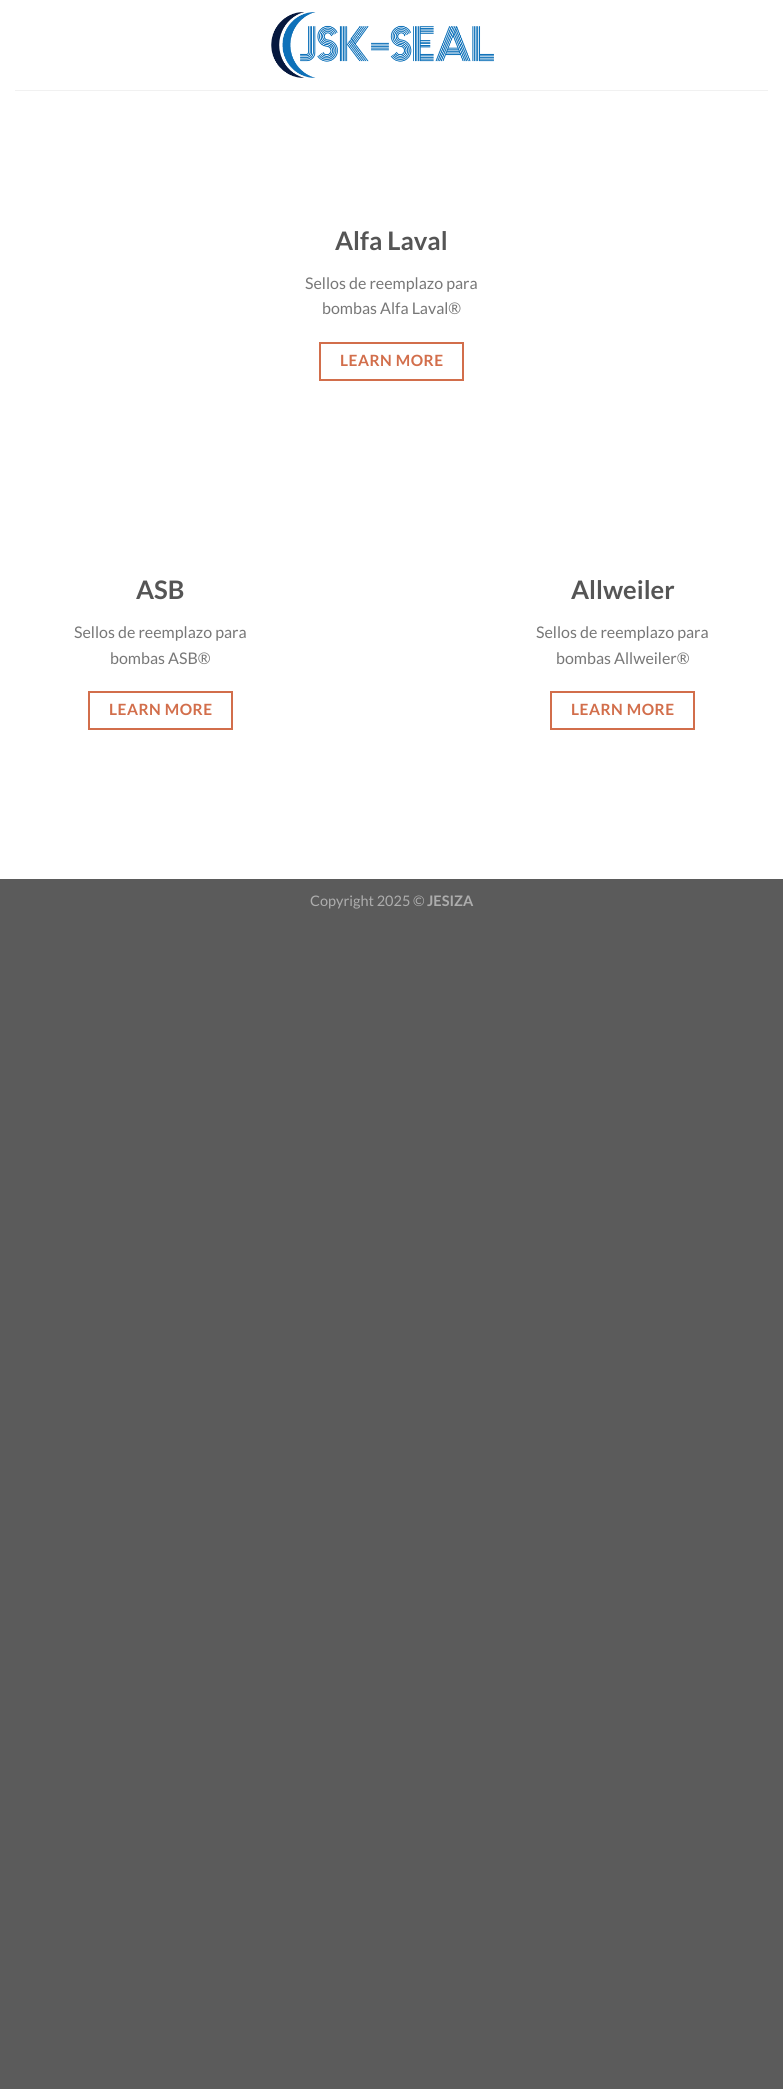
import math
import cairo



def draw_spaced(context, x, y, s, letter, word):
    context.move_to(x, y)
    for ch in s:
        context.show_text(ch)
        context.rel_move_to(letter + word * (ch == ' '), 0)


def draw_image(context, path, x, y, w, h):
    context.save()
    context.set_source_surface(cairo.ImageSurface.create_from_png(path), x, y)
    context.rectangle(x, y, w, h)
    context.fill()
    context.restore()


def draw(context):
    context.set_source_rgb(91 / 255, 91 / 255, 91 / 255)
    context.paint()
    context.set_source_rgb(1, 1, 1)
    context.rectangle(0, 0, 783, 879)
    context.fill()
    draw_image(context, "images/1.png", 271, 12, 223, 66)
    context.set_source_rgb(241 / 255, 241 / 255, 241 / 255)
    context.rectangle(15, 90, 753, 1)
    context.fill()
    context.rectangle(320, 343, 143, 37)
    context.set_source_rgb(210 / 255, 110 / 255, 75 / 255)
    context.stroke()
    context.rectangle(89, 692, 143, 37)
    context.stroke()
    context.rectangle(551, 692, 143, 37)
    context.stroke()
    context.select_font_face("Lato", cairo.FontSlant.NORMAL, cairo.FontWeight.BOLD)
    context.set_font_size(25.5)
    context.set_source_rgb(85 / 255, 85 / 255, 85 / 255)
    context.move_to(335, 250)
    context.show_text("Alfa Laval")
    context.select_font_face("Lato")
    context.set_font_size(16)
    context.set_source_rgb(119 / 255, 119 / 255, 119 / 255)
    context.move_to(305, 289)
    context.show_text("Sellos de reemplazo para")
    context.move_to(322, 314)
    context.show_text("bombas Alfa Laval®")
    context.select_font_face("Lato", cairo.FontSlant.NORMAL, cairo.FontWeight.BOLD)
    context.set_font_size(15.5)
    context.set_source_rgb(210 / 255, 110 / 255, 75 / 255)
    draw_spaced(context, 340, 366, "LEARN MORE", 0.5, 0)
    context.set_font_size(25.5)
    context.set_source_rgb(85 / 255, 85 / 255, 85 / 255)
    context.move_to(136, 599)
    context.show_text("ASB")
    context.select_font_face("Lato")
    context.set_font_size(16)
    context.set_source_rgb(119 / 255, 119 / 255, 119 / 255)
    context.move_to(74, 638)
    context.show_text("Sellos de reemplazo para")
    context.move_to(110, 664)
    context.show_text("bombas ASB®")
    context.select_font_face("Lato", cairo.FontSlant.NORMAL, cairo.FontWeight.BOLD)
    context.set_font_size(15.5)
    context.set_source_rgb(210 / 255, 110 / 255, 75 / 255)
    draw_spaced(context, 109, 715, "LEARN MORE", 0.5, 0)
    context.set_font_size(25.5)
    context.set_source_rgb(85 / 255, 85 / 255, 85 / 255)
    context.move_to(571, 599)
    context.show_text("Allweiler")
    context.select_font_face("Lato")
    context.set_font_size(16)
    context.set_source_rgb(119 / 255, 119 / 255, 119 / 255)
    context.move_to(536, 638)
    context.show_text("Sellos de reemplazo para")
    context.move_to(556, 664)
    context.show_text("bombas Allweiler®")
    context.select_font_face("Lato", cairo.FontSlant.NORMAL, cairo.FontWeight.BOLD)
    context.set_font_size(15.5)
    context.set_source_rgb(210 / 255, 110 / 255, 75 / 255)
    draw_spaced(context, 571, 715, "LEARN MORE", 0.5, 0)
    context.select_font_face("Lato")
    context.set_font_size(14.5)
    context.set_source_rgb(173 / 255, 173 / 255, 173 / 255)
    context.move_to(310, 906)
    context.show_text("Copyright 2025 ©")
    context.select_font_face("Lato", cairo.FontSlant.NORMAL, cairo.FontWeight.BOLD)
    context.move_to(427, 906)
    context.show_text("JESIZA")


surface = cairo.ImageSurface(cairo.Format.RGB24, 783, 2089)
context = cairo.Context(surface)
options = cairo.FontOptions()
options.set_hint_metrics(cairo.HintMetrics.OFF)
options.set_hint_style(cairo.HintStyle.NONE)
context.set_font_options(options)
context.set_miter_limit(4)
draw(context)
surface.write_to_png("out.png")
